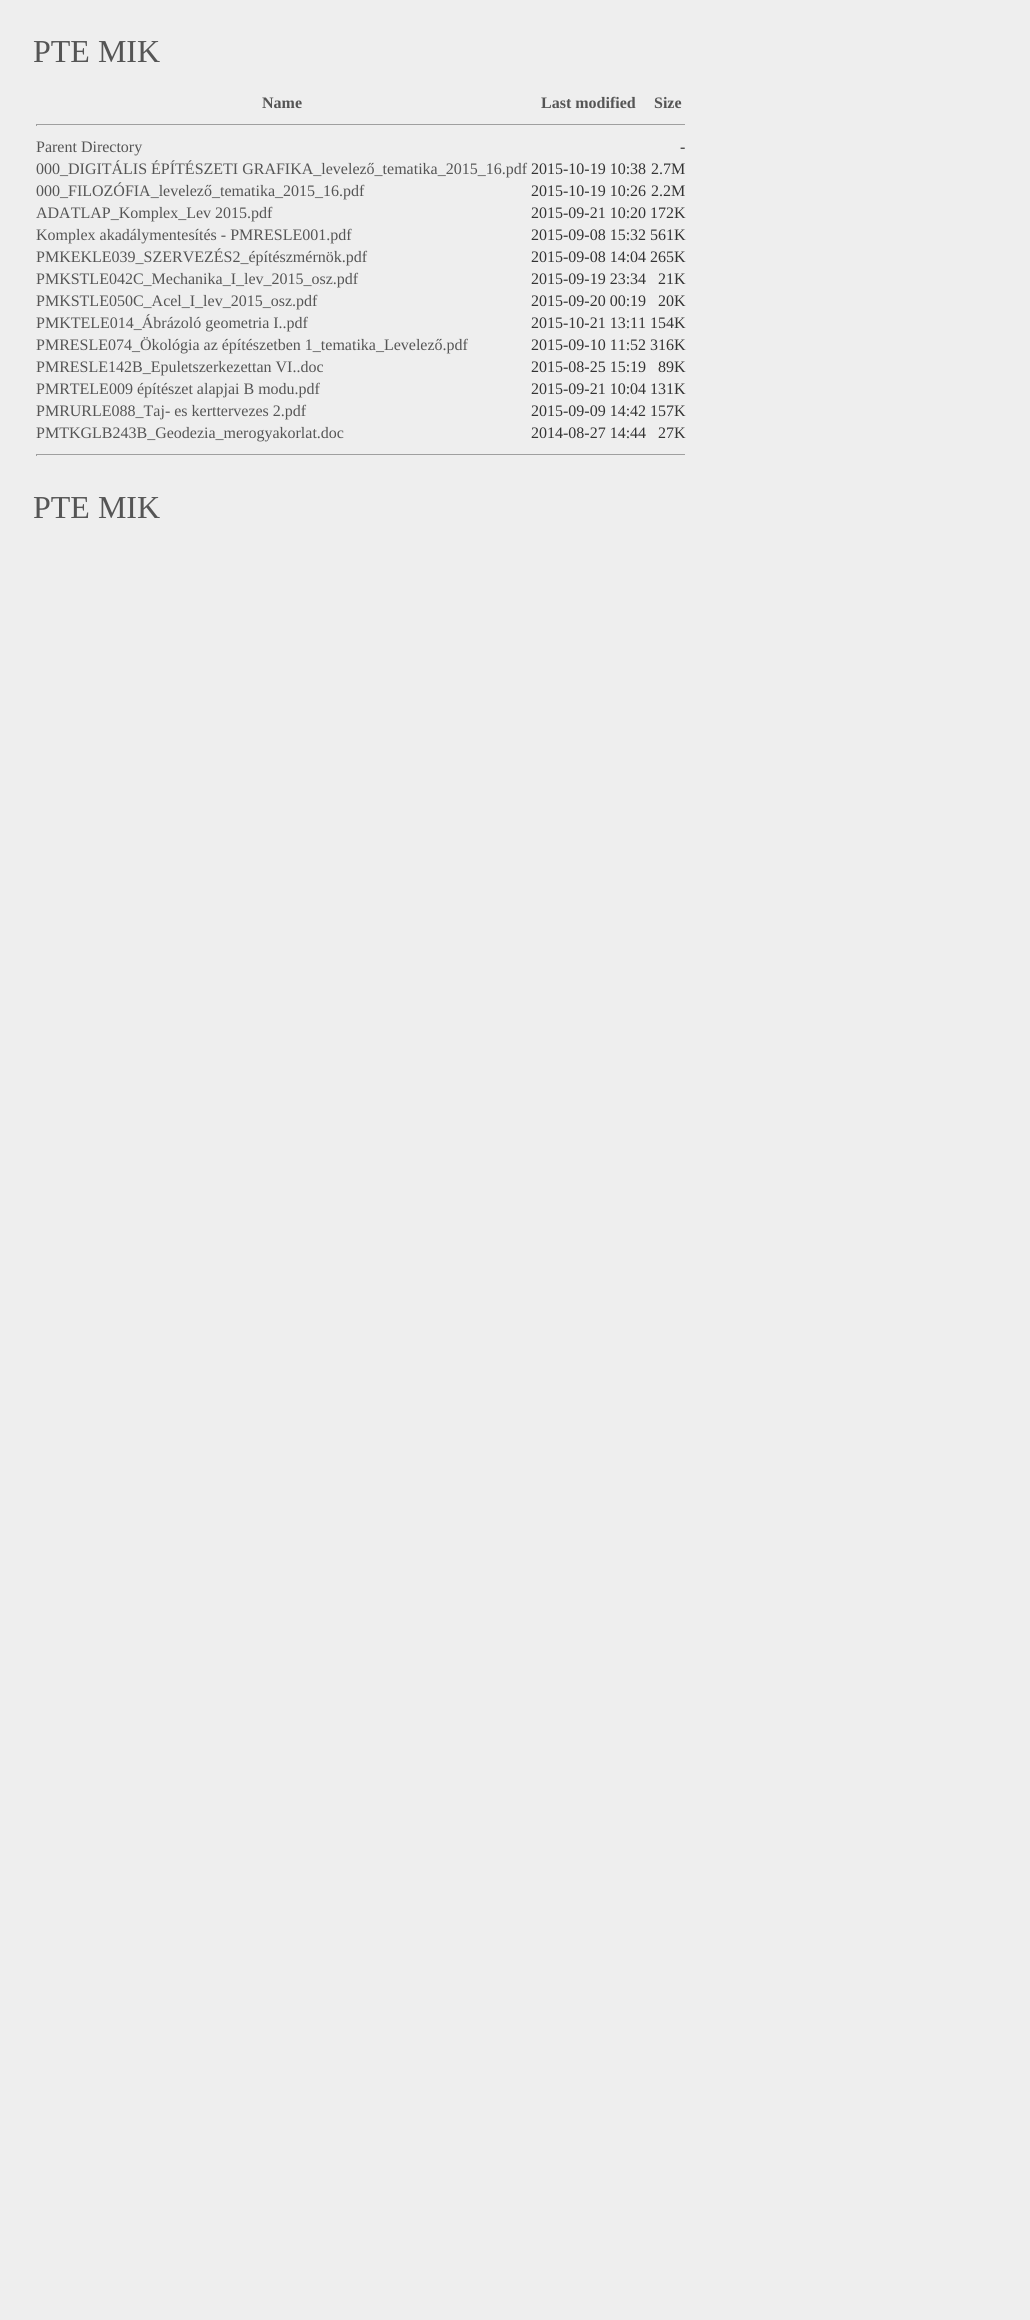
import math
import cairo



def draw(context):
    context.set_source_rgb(238 / 255, 238 / 255, 238 / 255)
    context.paint()
    context.set_source_rgb(159 / 255, 159 / 255, 159 / 255)
    context.rectangle(36, 124, 650, 1)
    context.fill()
    context.set_source_rgb(238 / 255, 238 / 255, 238 / 255)
    context.rectangle(685, 124, 1, 2)
    context.fill()
    context.set_source_rgb(159 / 255, 159 / 255, 159 / 255)
    context.rectangle(36, 124, 1, 2)
    context.fill()
    context.rectangle(36, 454, 650, 1)
    context.fill()
    context.set_source_rgb(238 / 255, 238 / 255, 238 / 255)
    context.rectangle(685, 454, 1, 2)
    context.fill()
    context.set_source_rgb(159 / 255, 159 / 255, 159 / 255)
    context.rectangle(36, 454, 1, 2)
    context.fill()
    context.select_font_face("Liberation Serif")
    context.set_font_size(32)
    context.set_source_rgb(85 / 255, 85 / 255, 85 / 255)
    context.move_to(33, 62)
    context.show_text("PTE MIK")
    context.select_font_face("Liberation Serif", cairo.FontSlant.NORMAL, cairo.FontWeight.BOLD)
    context.set_font_size(16)
    context.move_to(262, 108)
    context.show_text("Name")
    context.move_to(541, 108)
    context.show_text("Last modified")
    context.move_to(654, 108)
    context.show_text("Size")
    context.select_font_face("Liberation Serif")
    context.move_to(36, 152)
    context.show_text("Parent Directory")
    context.set_source_rgb(51 / 255, 51 / 255, 51 / 255)
    context.move_to(680, 152)
    context.show_text("-")
    context.set_source_rgb(85 / 255, 85 / 255, 85 / 255)
    context.move_to(36, 174)
    context.show_text("000_DIGITÁLIS ÉPÍTÉSZETI GRAFIKA_levelező_tematika_2015_16.pdf")
    context.set_source_rgb(51 / 255, 51 / 255, 51 / 255)
    context.move_to(531, 174)
    context.show_text("2015-10-19 10:38")
    context.move_to(651, 174)
    context.show_text("2.7M")
    context.set_source_rgb(85 / 255, 85 / 255, 85 / 255)
    context.move_to(36, 196)
    context.show_text("000_FILOZÓFIA_levelező_tematika_2015_16.pdf")
    context.set_source_rgb(51 / 255, 51 / 255, 51 / 255)
    context.move_to(531, 196)
    context.show_text("2015-10-19 10:26")
    context.move_to(651, 196)
    context.show_text("2.2M")
    context.set_source_rgb(85 / 255, 85 / 255, 85 / 255)
    context.move_to(36, 218)
    context.show_text("ADATLAP_Komplex_Lev 2015.pdf")
    context.set_source_rgb(51 / 255, 51 / 255, 51 / 255)
    context.move_to(531, 218)
    context.show_text("2015-09-21 10:20 172K")
    context.set_source_rgb(85 / 255, 85 / 255, 85 / 255)
    context.move_to(36, 240)
    context.show_text("Komplex akadálymentesítés - PMRESLE001.pdf")
    context.set_source_rgb(51 / 255, 51 / 255, 51 / 255)
    context.move_to(531, 240)
    context.show_text("2015-09-08 15:32 561K")
    context.set_source_rgb(85 / 255, 85 / 255, 85 / 255)
    context.move_to(36, 262)
    context.show_text("PMKEKLE039_SZERVEZÉS2_építészmérnök.pdf")
    context.set_source_rgb(51 / 255, 51 / 255, 51 / 255)
    context.move_to(531, 262)
    context.show_text("2015-09-08 14:04 265K")
    context.set_source_rgb(85 / 255, 85 / 255, 85 / 255)
    context.move_to(36, 284)
    context.show_text("PMKSTLE042C_Mechanika_I_lev_2015_osz.pdf")
    context.set_source_rgb(51 / 255, 51 / 255, 51 / 255)
    context.move_to(531, 284)
    context.show_text("2015-09-19 23:34")
    context.move_to(658, 284)
    context.show_text("21K")
    context.set_source_rgb(85 / 255, 85 / 255, 85 / 255)
    context.move_to(36, 306)
    context.show_text("PMKSTLE050C_Acel_I_lev_2015_osz.pdf")
    context.set_source_rgb(51 / 255, 51 / 255, 51 / 255)
    context.move_to(531, 306)
    context.show_text("2015-09-20 00:19")
    context.move_to(658, 306)
    context.show_text("20K")
    context.set_source_rgb(85 / 255, 85 / 255, 85 / 255)
    context.move_to(36, 328)
    context.show_text("PMKTELE014_Ábrázoló geometria I..pdf")
    context.set_source_rgb(51 / 255, 51 / 255, 51 / 255)
    context.move_to(531, 328)
    context.show_text("2015-10-21 13:11 154K")
    context.set_source_rgb(85 / 255, 85 / 255, 85 / 255)
    context.move_to(36, 350)
    context.show_text("PMRESLE074_Ökológia az építészetben 1_tematika_Levelező.pdf")
    context.set_source_rgb(51 / 255, 51 / 255, 51 / 255)
    context.move_to(531, 350)
    context.show_text("2015-09-10 11:52 316K")
    context.set_source_rgb(85 / 255, 85 / 255, 85 / 255)
    context.move_to(36, 372)
    context.show_text("PMRESLE142B_Epuletszerkezettan VI..doc")
    context.set_source_rgb(51 / 255, 51 / 255, 51 / 255)
    context.move_to(531, 372)
    context.show_text("2015-08-25 15:19")
    context.move_to(658, 372)
    context.show_text("89K")
    context.set_source_rgb(85 / 255, 85 / 255, 85 / 255)
    context.move_to(36, 394)
    context.show_text("PMRTELE009 építészet alapjai B modu.pdf")
    context.set_source_rgb(51 / 255, 51 / 255, 51 / 255)
    context.move_to(531, 394)
    context.show_text("2015-09-21 10:04 131K")
    context.set_source_rgb(85 / 255, 85 / 255, 85 / 255)
    context.move_to(36, 416)
    context.show_text("PMRURLE088_Taj- es kerttervezes 2.pdf")
    context.set_source_rgb(51 / 255, 51 / 255, 51 / 255)
    context.move_to(531, 416)
    context.show_text("2015-09-09 14:42 157K")
    context.set_source_rgb(85 / 255, 85 / 255, 85 / 255)
    context.move_to(36, 438)
    context.show_text("PMTKGLB243B_Geodezia_merogyakorlat.doc")
    context.set_source_rgb(51 / 255, 51 / 255, 51 / 255)
    context.move_to(531, 438)
    context.show_text("2014-08-27 14:44")
    context.move_to(658, 438)
    context.show_text("27K")
    context.set_font_size(32)
    context.set_source_rgb(85 / 255, 85 / 255, 85 / 255)
    context.move_to(33, 518)
    context.show_text("PTE MIK")


surface = cairo.ImageSurface(cairo.Format.RGB24, 1030, 2320)
context = cairo.Context(surface)
options = cairo.FontOptions()
options.set_hint_metrics(cairo.HintMetrics.OFF)
options.set_hint_style(cairo.HintStyle.NONE)
context.set_font_options(options)
context.set_miter_limit(4)
draw(context)
surface.write_to_png("out.png")
